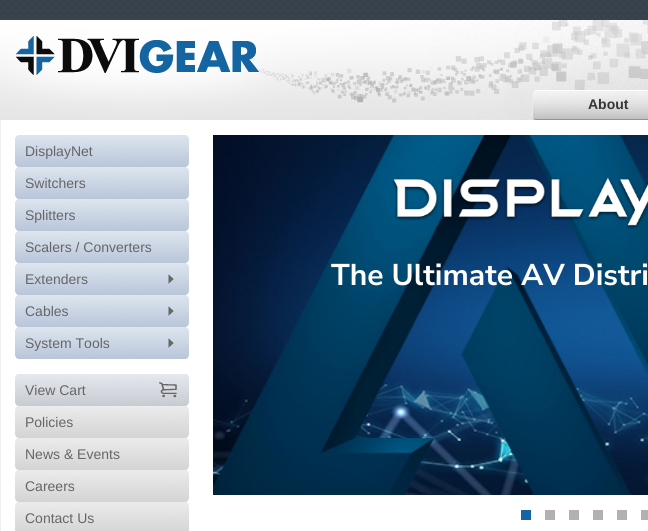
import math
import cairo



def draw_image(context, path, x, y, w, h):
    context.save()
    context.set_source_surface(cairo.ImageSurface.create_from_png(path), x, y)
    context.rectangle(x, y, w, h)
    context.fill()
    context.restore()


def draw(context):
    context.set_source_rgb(1, 1, 1)
    context.paint()
    draw_image(context, "images/1.png", 0, 0, 648, 20)
    draw_image(context, "images/2.png", 0, 20, 648, 70)
    draw_image(context, "images/3.png", 0, 90, 648, 30)
    context.new_path()
    context.move_to(533.5, 91.5)
    context.curve_to(534, 91, 535, 90.5, 536, 90.5)
    context.line_to(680, 90.5)
    context.curve_to(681, 90.5, 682, 91, 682.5, 91.5)
    context.set_source_rgb(1, 1, 1)
    context.set_line_width(1)
    context.stroke()
    context.new_path()
    context.move_to(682.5, 118.5)
    context.curve_to(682, 119, 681, 119.5, 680, 119.5)
    context.line_to(536, 119.5)
    context.curve_to(535, 119.5, 534, 119, 533.5, 118.5)
    context.set_source_rgb(147 / 255, 147 / 255, 147 / 255)
    context.stroke()
    context.new_path()
    context.move_to(533.5, 118.5)
    context.curve_to(533, 118, 532.5, 117, 532.5, 116)
    context.line_to(532.5, 94)
    context.curve_to(532.5, 93, 533, 92, 533.5, 91.5)
    context.set_source_rgb(234 / 255, 234 / 255, 234 / 255)
    context.stroke()
    context.set_source_rgb(239 / 255, 239 / 255, 239 / 255)
    context.rectangle(0, 120, 1, 411)
    context.fill()
    draw_image(context, "images/4.png", 15, 135, 174, 32)
    draw_image(context, "images/4.png", 15, 167, 174, 32)
    draw_image(context, "images/4.png", 15, 199, 174, 32)
    draw_image(context, "images/4.png", 15, 231, 174, 32)
    draw_image(context, "images/5.png", 15, 263, 174, 32)
    draw_image(context, "images/5.png", 15, 295, 174, 32)
    draw_image(context, "images/5.png", 15, 327, 174, 32)
    draw_image(context, "images/6.png", 15, 374, 174, 32)
    draw_image(context, "images/7.png", 15, 406, 174, 32)
    draw_image(context, "images/7.png", 15, 438, 174, 32)
    draw_image(context, "images/7.png", 15, 470, 174, 32)
    draw_image(context, "images/8.png", 15, 502, 174, 29)
    draw_image(context, "images/9.png", 213, 135, 435, 360)
    draw_image(context, "images/10.png", 213, 135, 435, 360)
    draw_image(context, "images/11.png", 392, 177, 256, 52)
    context.set_source_rgb(21 / 255, 101 / 255, 162 / 255)
    context.rectangle(521, 510, 10, 10)
    context.fill()
    context.set_source_rgb(177 / 255, 177 / 255, 179 / 255)
    context.rectangle(545, 510, 10, 10)
    context.fill()
    context.rectangle(569, 510, 10, 10)
    context.fill()
    context.rectangle(593, 510, 10, 10)
    context.fill()
    context.rectangle(617, 510, 10, 10)
    context.fill()
    context.rectangle(641, 510, 7, 10)
    context.fill()
    context.select_font_face("Liberation Sans", cairo.FontSlant.NORMAL, cairo.FontWeight.BOLD)
    context.set_font_size(14)
    context.set_source_rgb(54 / 255, 54 / 255, 54 / 255)
    context.move_to(588, 109)
    context.show_text("About")
    context.select_font_face("Liberation Sans")
    context.set_source_rgb(102 / 255, 102 / 255, 102 / 255)
    context.move_to(25, 156)
    context.show_text("DisplayNet")
    context.move_to(25, 188)
    context.show_text("Switchers")
    context.move_to(25, 220)
    context.show_text("Splitters")
    context.move_to(25, 252)
    context.show_text("Scalers / Converters")
    context.move_to(25, 284)
    context.show_text("Extenders")
    context.move_to(25, 316)
    context.show_text("Cables")
    context.move_to(25, 348)
    context.show_text("System Tools")
    context.move_to(25, 395)
    context.show_text("View Cart")
    context.move_to(25, 427)
    context.show_text("Policies")
    context.move_to(25, 459)
    context.show_text("News & Events")
    context.move_to(25, 491)
    context.show_text("Careers")
    context.move_to(25, 523)
    context.show_text("Contact Us")
    context.select_font_face("Nunito Sans", cairo.FontSlant.NORMAL, cairo.FontWeight.BOLD)
    context.set_font_size(30)
    context.set_source_rgb(1, 1, 1)
    context.move_to(331, 285)
    context.show_text("The Ultimate AV Distri")


surface = cairo.ImageSurface(cairo.Format.RGB24, 648, 531)
context = cairo.Context(surface)
options = cairo.FontOptions()
options.set_hint_metrics(cairo.HintMetrics.OFF)
options.set_hint_style(cairo.HintStyle.NONE)
context.set_font_options(options)
context.set_miter_limit(4)
draw(context)
surface.write_to_png("out.png")
